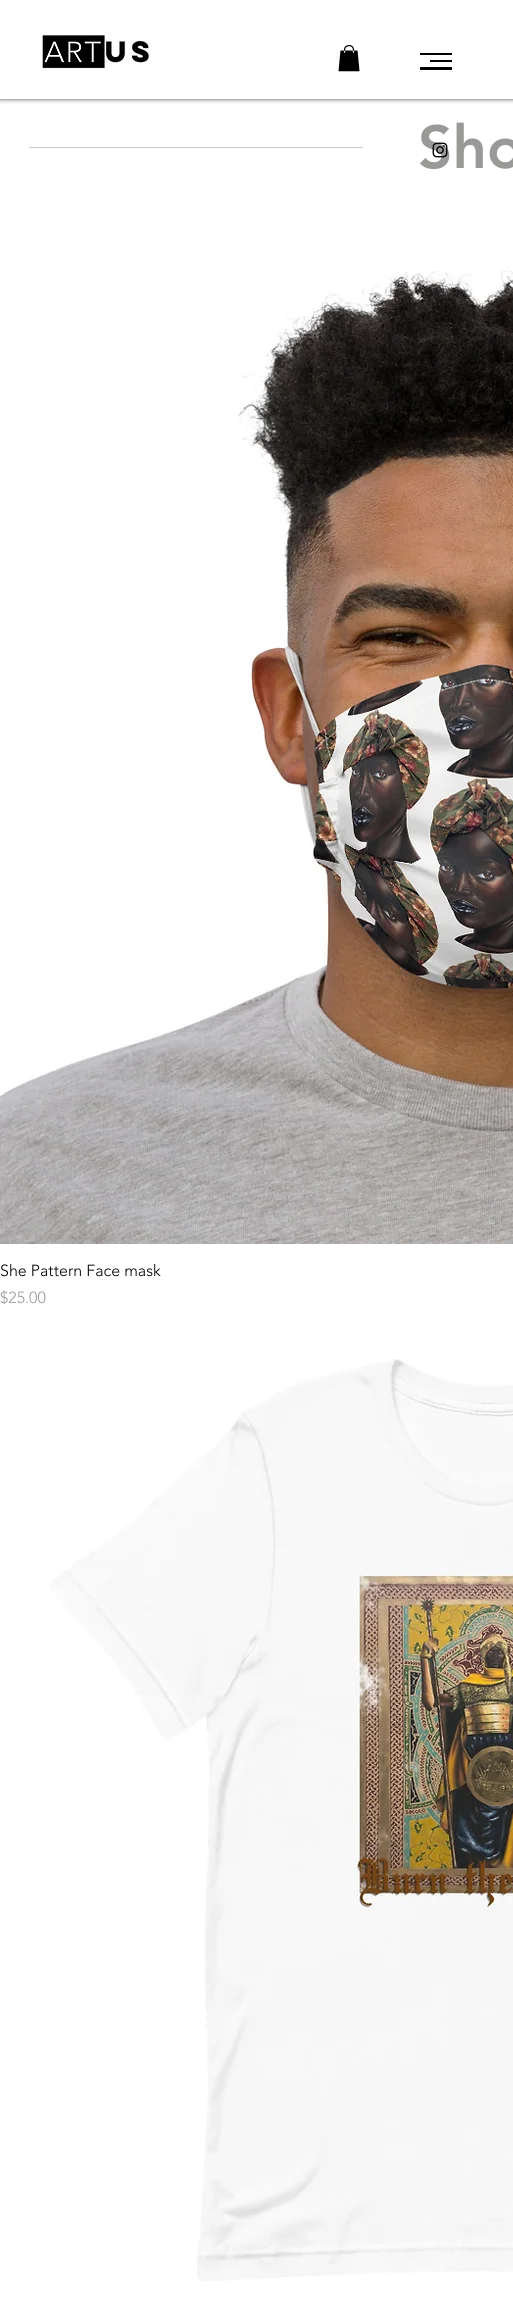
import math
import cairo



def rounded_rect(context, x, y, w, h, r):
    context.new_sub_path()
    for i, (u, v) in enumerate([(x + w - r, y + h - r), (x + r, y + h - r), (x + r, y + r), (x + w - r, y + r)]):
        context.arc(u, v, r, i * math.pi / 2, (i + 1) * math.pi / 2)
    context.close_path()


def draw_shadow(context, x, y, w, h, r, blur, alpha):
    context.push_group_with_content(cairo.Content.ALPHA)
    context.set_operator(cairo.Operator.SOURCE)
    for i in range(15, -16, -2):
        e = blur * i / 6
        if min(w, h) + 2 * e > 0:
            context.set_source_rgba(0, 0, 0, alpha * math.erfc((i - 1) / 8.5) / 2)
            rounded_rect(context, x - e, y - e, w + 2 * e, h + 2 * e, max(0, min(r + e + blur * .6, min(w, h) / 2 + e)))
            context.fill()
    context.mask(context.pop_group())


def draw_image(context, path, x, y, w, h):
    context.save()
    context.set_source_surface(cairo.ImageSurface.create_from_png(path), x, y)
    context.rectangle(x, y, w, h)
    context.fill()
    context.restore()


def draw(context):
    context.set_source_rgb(1, 1, 1)
    context.paint()
    context.save()
    context.rectangle(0, 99, 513, 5)
    context.clip()
    context.set_source_rgb(0, 0, 0)
    draw_shadow(context, 0, 0, 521, 99, 0, 2.5, 0.7)
    context.restore()
    draw_image(context, "images/1.png", 42, 35, 107, 34)
    draw_image(context, "images/2.png", 338, 45, 22, 27)
    context.set_source_rgb(0, 0, 0)
    context.rectangle(420, 53, 32, 2)
    context.fill()
    context.rectangle(430, 60, 22, 2)
    context.fill()
    context.rectangle(420, 67, 32, 3)
    context.fill()
    context.set_source_rgb(199 / 255, 199 / 255, 199 / 255)
    context.rectangle(29, 147, 334, 1)
    context.fill()
    draw_image(context, "images/4.png", 0, 270, 513, 974)
    draw_image(context, "images/5.png", 49, 1359, 464, 923)
    context.select_font_face("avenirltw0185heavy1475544 Black")
    context.set_font_size(60)
    context.set_source_rgb(153 / 255, 153 / 255, 151 / 255)
    context.move_to(418, 168)
    context.show_text("Sho")
    draw_image(context, "images/3.png", 432, 142, 16, 16)
    context.select_font_face("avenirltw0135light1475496 Light")
    context.set_font_size(16)
    context.set_source_rgb(0, 0, 0)
    context.move_to(0, 1276)
    context.show_text("She Pattern Face mask")
    context.set_source_rgb(153 / 255, 153 / 255, 151 / 255)
    context.move_to(0, 1303)
    context.show_text("$25.00")


surface = cairo.ImageSurface(cairo.Format.RGB24, 513, 2323)
context = cairo.Context(surface)
options = cairo.FontOptions()
options.set_hint_metrics(cairo.HintMetrics.OFF)
options.set_hint_style(cairo.HintStyle.NONE)
context.set_font_options(options)
context.set_miter_limit(4)
draw(context)
surface.write_to_png("out.png")
